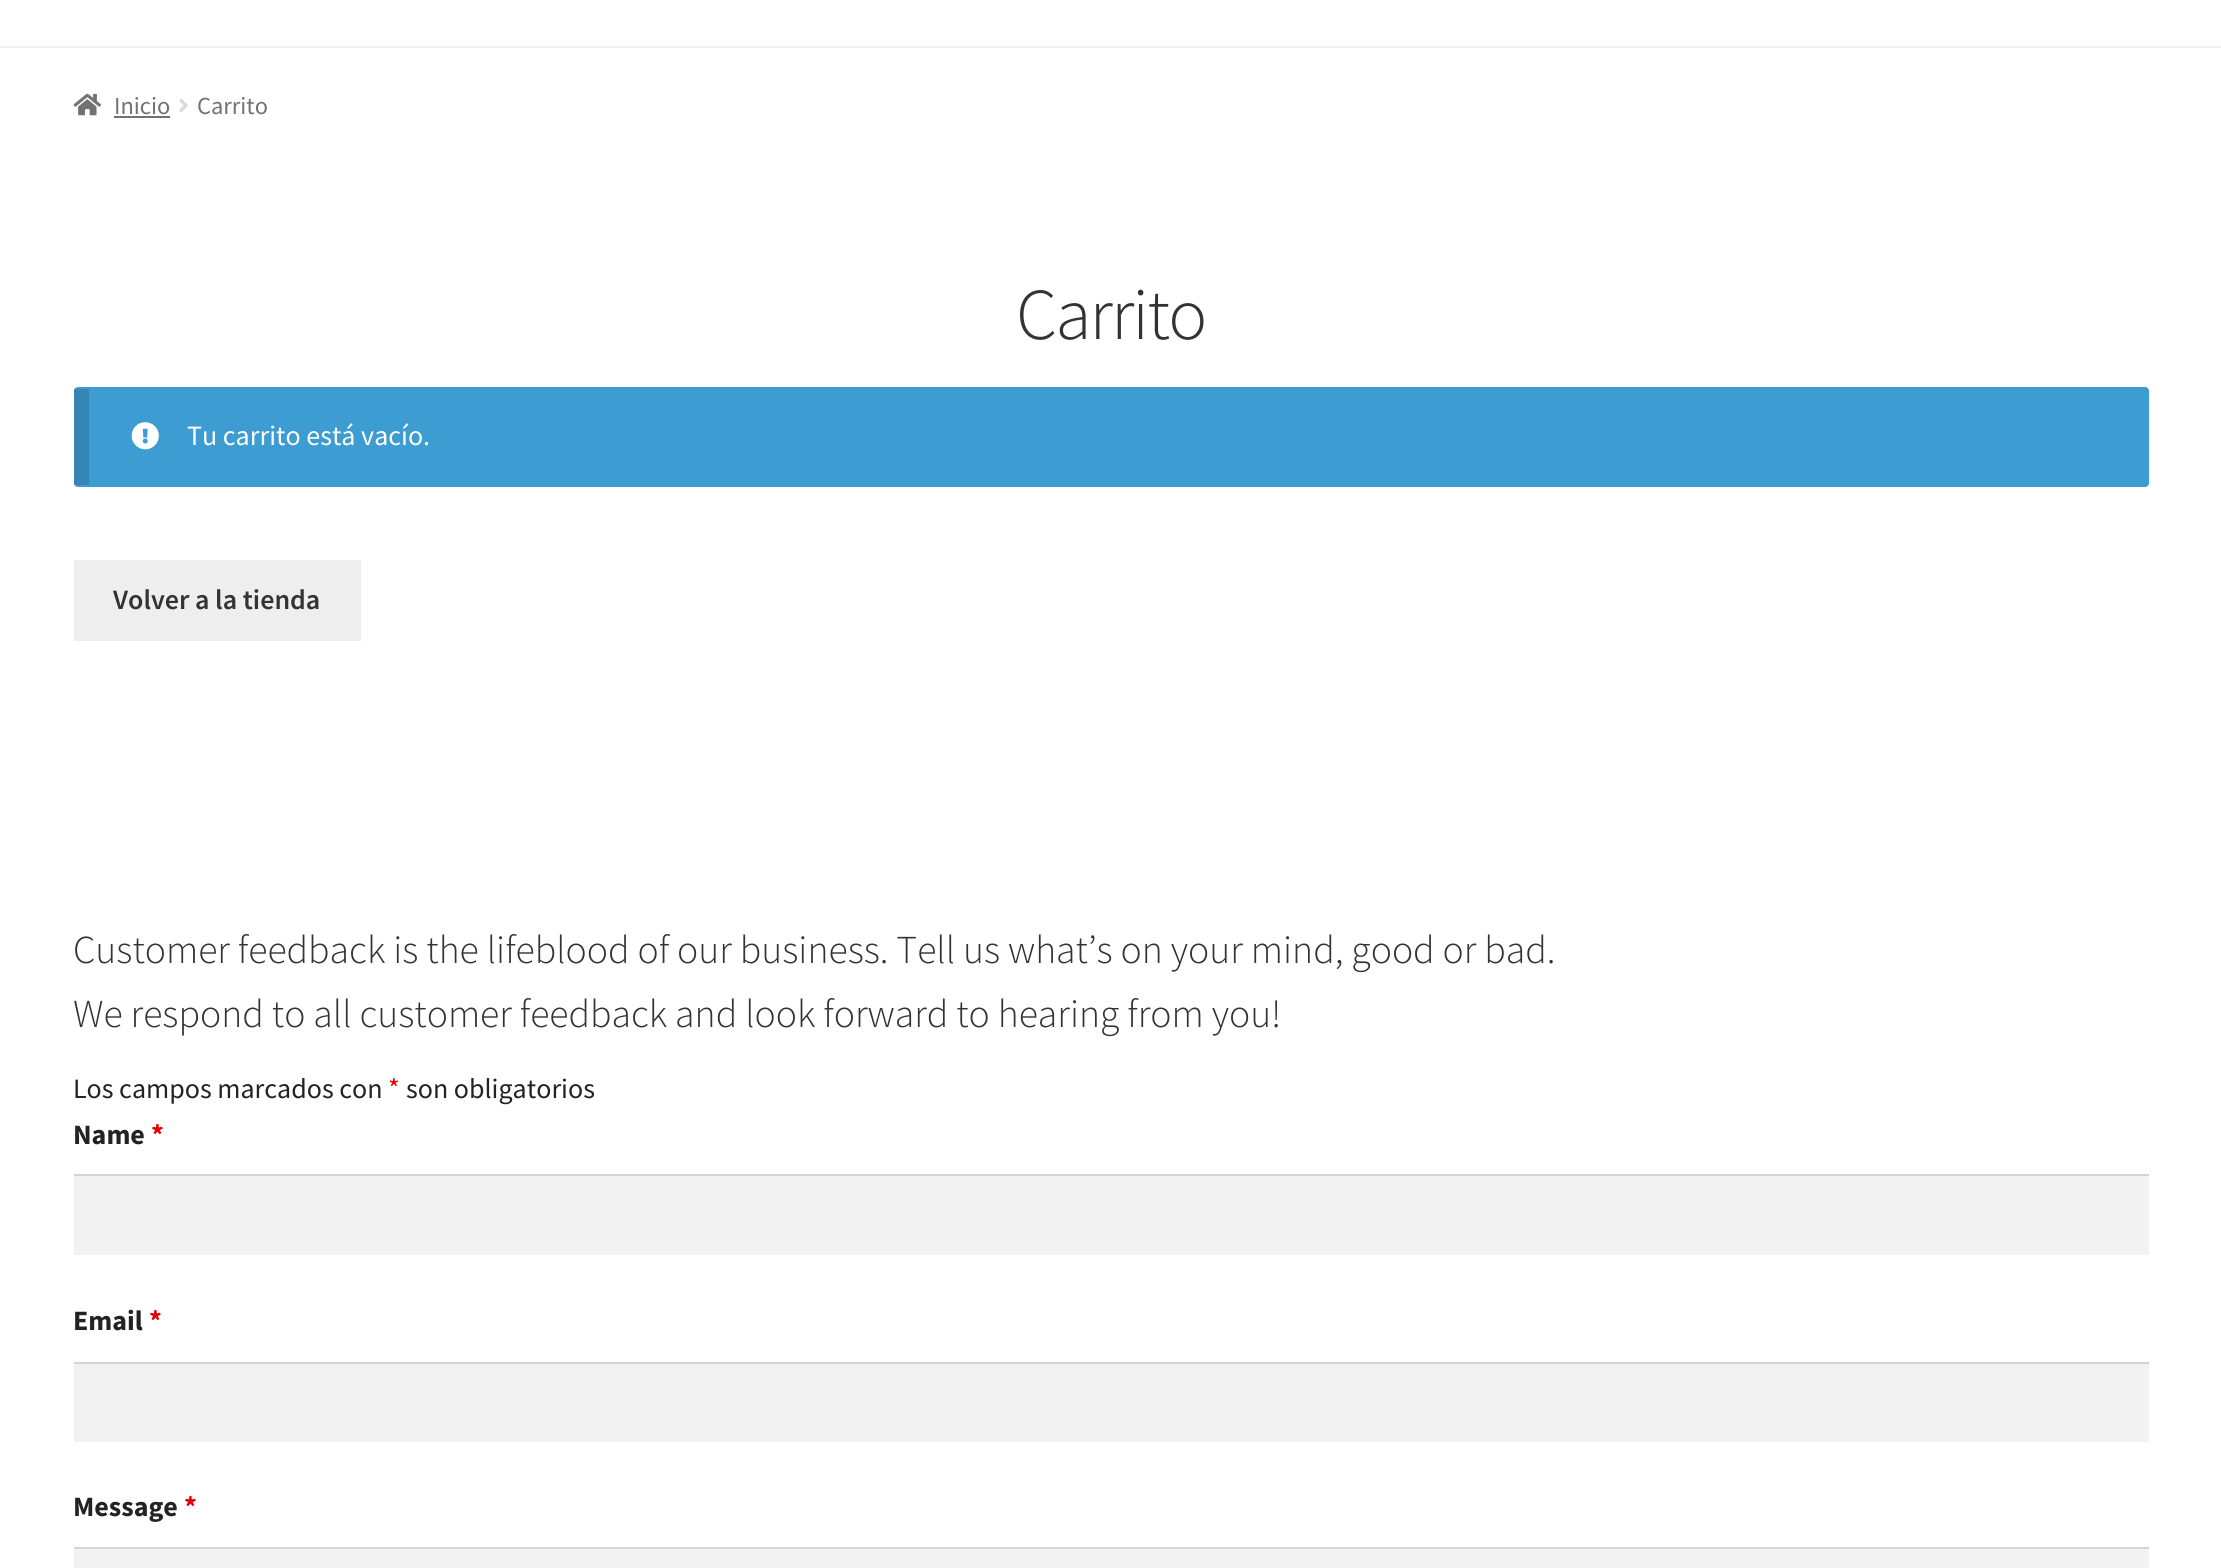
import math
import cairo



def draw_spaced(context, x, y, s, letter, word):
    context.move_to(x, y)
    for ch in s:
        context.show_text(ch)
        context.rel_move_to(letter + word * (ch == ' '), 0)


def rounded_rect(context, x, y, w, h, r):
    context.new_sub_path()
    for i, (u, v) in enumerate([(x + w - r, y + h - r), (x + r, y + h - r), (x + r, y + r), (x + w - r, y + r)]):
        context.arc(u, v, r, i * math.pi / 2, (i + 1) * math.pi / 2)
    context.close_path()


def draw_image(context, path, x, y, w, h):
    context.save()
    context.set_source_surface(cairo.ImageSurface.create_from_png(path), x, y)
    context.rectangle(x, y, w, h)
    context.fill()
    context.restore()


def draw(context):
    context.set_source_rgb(1, 1, 1)
    context.paint()
    context.set_source_rgb(240 / 255, 240 / 255, 240 / 255)
    context.rectangle(0, 46, 2221, 2)
    context.fill()
    draw_image(context, "images/1.png", 73, 93, 28, 23)
    context.set_source_rgb(114 / 255, 114 / 255, 114 / 255)
    context.rectangle(114, 116, 56, 2)
    context.fill()
    draw_image(context, "images/2.png", 179, 98, 9, 15)
    context.set_source_rgb(61 / 255, 156 / 255, 210 / 255)
    rounded_rect(context, 74, 387, 2075, 100, 4)
    context.fill()
    context.set_source_rgba(0, 0, 0, 0.15)
    context.rectangle(74, 389, 15, 96)
    context.fill()
    draw_image(context, "images/3.png", 131, 422, 28, 28)
    context.set_source_rgb(238 / 255, 238 / 255, 238 / 255)
    context.rectangle(74, 560, 287, 81)
    context.fill()
    context.set_source_rgb(242 / 255, 242 / 255, 242 / 255)
    context.rectangle(74, 1176, 2075, 79)
    context.fill()
    context.set_source_rgb(212 / 255, 212 / 255, 212 / 255)
    context.rectangle(74, 1174, 2075, 2)
    context.fill()
    context.set_source_rgb(242 / 255, 242 / 255, 242 / 255)
    context.rectangle(74, 1364, 2075, 78)
    context.fill()
    context.set_source_rgb(212 / 255, 212 / 255, 212 / 255)
    context.rectangle(74, 1362, 2075, 2)
    context.fill()
    context.set_source_rgb(242 / 255, 242 / 255, 242 / 255)
    context.rectangle(74, 1549, 2075, 19)
    context.fill()
    context.set_source_rgb(212 / 255, 212 / 255, 212 / 255)
    context.rectangle(74, 1547, 2075, 2)
    context.fill()
    context.select_font_face("Source Sans Pro")
    context.set_font_size(24.5)
    context.set_source_rgb(114 / 255, 114 / 255, 114 / 255)
    context.move_to(114, 114)
    context.show_text("Inicio")
    context.move_to(197, 114)
    context.show_text("Carrito")
    context.select_font_face("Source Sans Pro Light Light")
    context.set_font_size(73)
    context.set_source_rgb(51 / 255, 51 / 255, 51 / 255)
    draw_spaced(context, 1016, 339, "Carrito", -1.75, 0)
    context.select_font_face("Source Sans Pro")
    context.set_font_size(28)
    context.set_source_rgb(1, 1, 1)
    context.move_to(187, 445)
    context.show_text("Tu carrito está vacío.")
    context.select_font_face("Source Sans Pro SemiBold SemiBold")
    context.set_source_rgb(51 / 255, 51 / 255, 51 / 255)
    context.move_to(113, 609)
    context.show_text("Volver a la tienda")
    context.select_font_face("Source Sans Pro Light Light")
    context.set_font_size(39.65)
    context.move_to(73, 963)
    context.show_text("Customer feedback is the lifeblood of our business. Tell us what’s on your mind, good or bad.")
    context.move_to(73, 1027)
    context.show_text("We respond to all customer feedback and look forward to hearing from you!")
    context.select_font_face("Source Sans Pro")
    context.set_font_size(28)
    context.set_source_rgb(35 / 255, 35 / 255, 35 / 255)
    context.move_to(73, 1098)
    context.show_text("Los campos marcados con")
    context.set_source_rgb(232 / 255, 0, 0)
    context.move_to(388, 1098)
    context.show_text("*")
    context.set_source_rgb(35 / 255, 35 / 255, 35 / 255)
    context.move_to(406, 1098)
    context.show_text("son obligatorios")
    context.select_font_face("Source Sans Pro", cairo.FontSlant.NORMAL, cairo.FontWeight.BOLD)
    context.move_to(73, 1144)
    context.show_text("Name")
    context.set_source_rgb(232 / 255, 0, 0)
    context.move_to(151, 1144)
    context.show_text("*")
    context.set_source_rgb(35 / 255, 35 / 255, 35 / 255)
    context.move_to(73, 1330)
    context.show_text("Email")
    context.set_source_rgb(232 / 255, 0, 0)
    context.move_to(149, 1330)
    context.show_text("*")
    context.set_source_rgb(35 / 255, 35 / 255, 35 / 255)
    context.move_to(73, 1516)
    context.show_text("Message")
    context.set_source_rgb(232 / 255, 0, 0)
    context.move_to(184, 1516)
    context.show_text("*")


surface = cairo.ImageSurface(cairo.Format.RGB24, 2221, 1568)
context = cairo.Context(surface)
options = cairo.FontOptions()
options.set_hint_metrics(cairo.HintMetrics.OFF)
options.set_hint_style(cairo.HintStyle.NONE)
context.set_font_options(options)
context.set_miter_limit(4)
draw(context)
surface.write_to_png("out.png")
